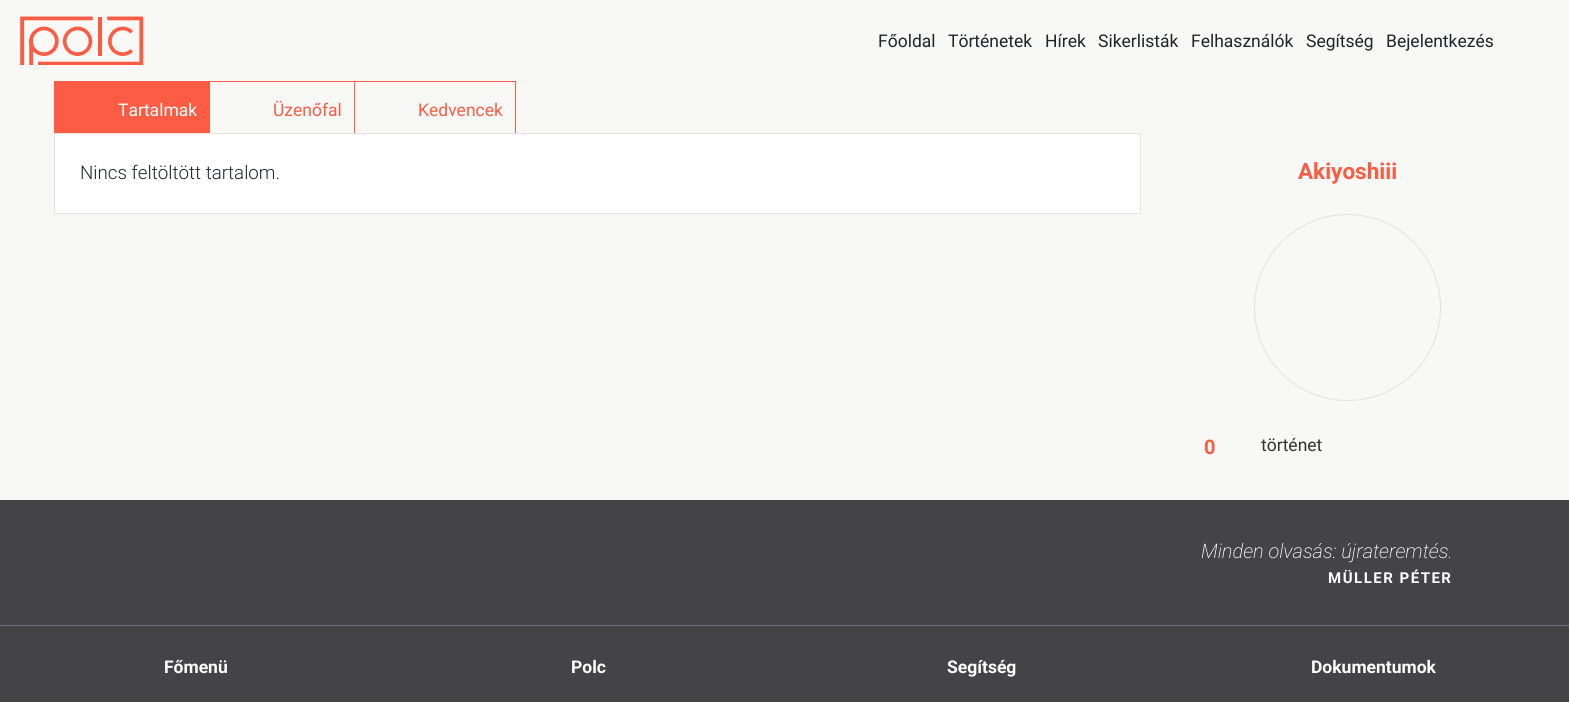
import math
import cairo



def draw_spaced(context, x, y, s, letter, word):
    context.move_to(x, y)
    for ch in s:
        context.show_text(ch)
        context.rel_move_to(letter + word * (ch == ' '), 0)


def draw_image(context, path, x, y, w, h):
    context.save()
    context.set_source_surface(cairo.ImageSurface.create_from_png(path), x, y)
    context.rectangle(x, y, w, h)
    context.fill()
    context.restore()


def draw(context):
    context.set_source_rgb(248 / 255, 248 / 255, 246 / 255)
    context.paint()
    draw_image(context, "images/1.png", 20, 16, 124, 49)
    context.set_source_rgb(251 / 255, 92 / 255, 67 / 255)
    context.rectangle(54, 81, 155, 52)
    context.fill()
    context.rectangle(209.5, 81.5, 145, 54)
    context.set_line_width(1)
    context.stroke()
    context.rectangle(354.5, 81.5, 161, 54)
    context.stroke()
    context.set_source_rgb(1, 1, 1)
    context.rectangle(54.5, 133.5, 1086, 80)
    context.fill_preserve()
    context.set_source_rgb(228 / 255, 226 / 255, 226 / 255)
    context.stroke()
    context.arc(1347.5, 307.5, 93, 0, 2 * math.pi)
    context.stroke()
    context.set_source_rgb(68 / 255, 68 / 255, 70 / 255)
    context.rectangle(0, 500, 1569, 202)
    context.fill()
    context.set_source_rgb(108 / 255, 117 / 255, 125 / 255)
    context.rectangle(0, 625, 1569, 1)
    context.fill()
    context.select_font_face("Roboto")
    context.set_font_size(17.5)
    context.set_source_rgb(33 / 255, 37 / 255, 41 / 255)
    context.move_to(878, 47)
    context.show_text("Főoldal")
    context.move_to(948, 47)
    context.show_text("Történetek")
    context.move_to(1045, 47)
    context.show_text("Hírek")
    context.move_to(1098, 47)
    context.show_text("Sikerlisták")
    context.move_to(1191, 47)
    context.show_text("Felhasználók")
    context.move_to(1306, 47)
    context.show_text("Segítség")
    context.move_to(1386, 47)
    context.show_text("Bejelentkezés")
    context.set_source_rgb(1, 1, 1)
    context.move_to(118, 116)
    context.show_text("Tartalmak")
    context.set_source_rgb(251 / 255, 92 / 255, 67 / 255)
    context.move_to(273, 116)
    context.show_text("Üzenőfal")
    context.move_to(418, 116)
    context.show_text("Kedvencek")
    context.select_font_face("Roboto Light")
    context.set_font_size(18.75)
    context.set_source_rgb(33 / 255, 37 / 255, 41 / 255)
    context.move_to(80, 179)
    context.show_text("Nincs feltöltött tartalom.")
    context.select_font_face("Roboto", cairo.FontSlant.NORMAL, cairo.FontWeight.BOLD)
    context.set_font_size(22.5)
    context.set_source_rgb(251 / 255, 92 / 255, 67 / 255)
    context.move_to(1298, 179)
    context.show_text("Akiyoshiii")
    context.set_font_size(20)
    context.move_to(1204, 454)
    context.show_text("0")
    context.select_font_face("Roboto")
    context.set_font_size(17.5)
    context.set_source_rgb(51 / 255, 51 / 255, 51 / 255)
    context.move_to(1261, 451)
    context.show_text("történet")
    context.select_font_face("Roboto ExtraLight", cairo.FontSlant.ITALIC)
    context.set_font_size(20)
    context.set_source_rgb(1, 1, 1)
    context.move_to(1201, 558)
    context.show_text("Minden olvasás: újrateremtés.")
    context.select_font_face("Roboto", cairo.FontSlant.NORMAL, cairo.FontWeight.BOLD)
    context.set_font_size(15)
    draw_spaced(context, 1328, 583, "MÜLLER PÉTER", 1.5, 0)
    context.set_font_size(17.5)
    context.move_to(164, 673)
    context.show_text("Főmenü")
    context.move_to(571, 673)
    context.show_text("Polc")
    context.move_to(947, 673)
    context.show_text("Segítség")
    context.move_to(1311, 673)
    context.show_text("Dokumentumok")


surface = cairo.ImageSurface(cairo.Format.RGB24, 1569, 702)
context = cairo.Context(surface)
options = cairo.FontOptions()
options.set_hint_metrics(cairo.HintMetrics.OFF)
options.set_hint_style(cairo.HintStyle.NONE)
context.set_font_options(options)
context.set_miter_limit(4)
draw(context)
surface.write_to_png("out.png")
